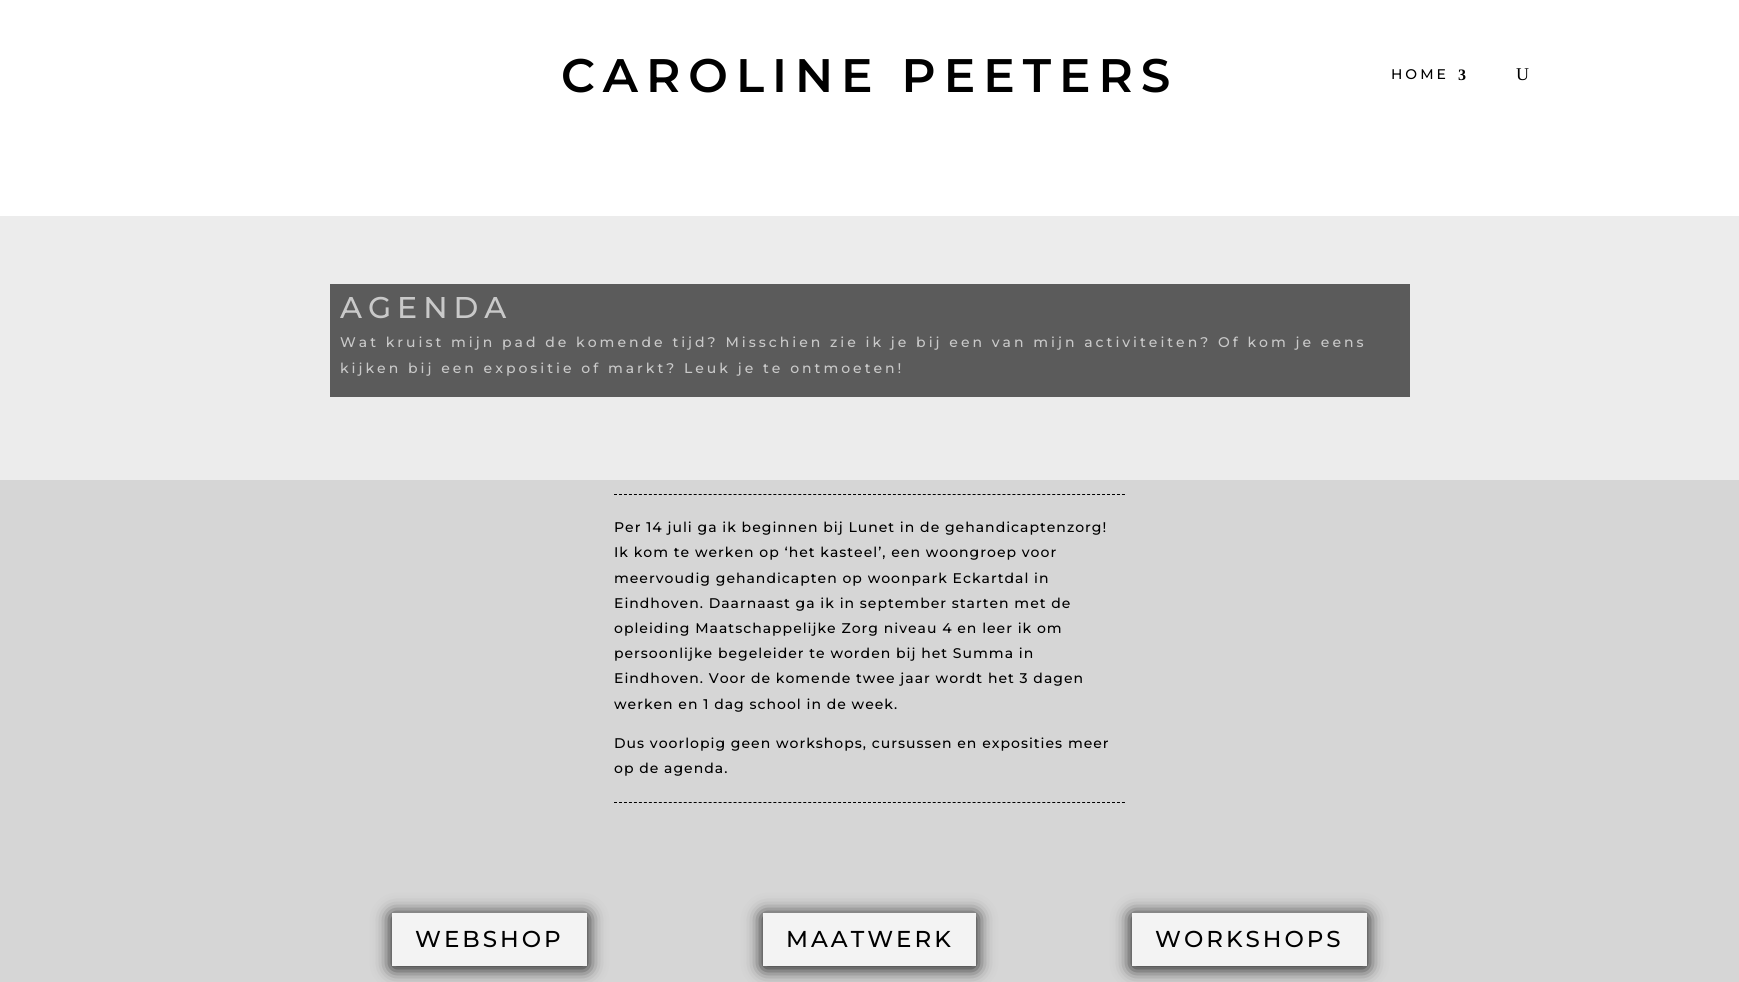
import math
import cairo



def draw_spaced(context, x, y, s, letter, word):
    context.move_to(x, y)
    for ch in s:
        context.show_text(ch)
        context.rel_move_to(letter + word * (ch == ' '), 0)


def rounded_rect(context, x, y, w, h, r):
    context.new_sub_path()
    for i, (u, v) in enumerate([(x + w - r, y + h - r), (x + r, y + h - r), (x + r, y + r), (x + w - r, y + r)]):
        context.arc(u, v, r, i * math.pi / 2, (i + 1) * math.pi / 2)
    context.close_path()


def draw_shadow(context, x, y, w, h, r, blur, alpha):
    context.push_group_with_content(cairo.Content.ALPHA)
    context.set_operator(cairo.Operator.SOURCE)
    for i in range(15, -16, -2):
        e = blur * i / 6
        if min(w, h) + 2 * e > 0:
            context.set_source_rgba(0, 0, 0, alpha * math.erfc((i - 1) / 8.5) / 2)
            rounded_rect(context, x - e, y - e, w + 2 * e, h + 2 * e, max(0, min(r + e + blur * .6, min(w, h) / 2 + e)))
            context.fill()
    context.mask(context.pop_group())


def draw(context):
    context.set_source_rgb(1, 1, 1)
    context.paint()
    context.set_source_rgb(236 / 255, 236 / 255, 236 / 255)
    context.rectangle(0, 216, 1739, 264)
    context.fill()
    context.set_source_rgb(91 / 255, 91 / 255, 91 / 255)
    context.rectangle(330, 284, 1080, 113)
    context.fill()
    context.set_source_rgb(214 / 255, 214 / 255, 214 / 255)
    context.rectangle(0, 480, 1739, 502)
    context.fill()
    context.new_path()
    context.move_to(614, 494.5)
    context.line_to(1125, 494.5)
    context.set_source_rgb(0, 0, 0)
    context.set_line_width(1)
    context.set_dash([3, 1.98])
    context.stroke()
    context.new_path()
    context.move_to(614, 802.5)
    context.line_to(1125, 802.5)
    context.stroke()
    context.set_source_rgb(0, 0, 0)
    draw_shadow(context, 392, 915, 195, 53, 0, 9, 1)
    context.set_source_rgb(243 / 255, 243 / 255, 243 / 255)
    context.rectangle(392, 913, 195, 53)
    context.fill()
    context.set_source_rgb(0, 0, 0)
    draw_shadow(context, 763, 915, 213, 53, 0, 9, 1)
    context.set_source_rgb(243 / 255, 243 / 255, 243 / 255)
    context.rectangle(763, 913, 213, 53)
    context.fill()
    context.set_source_rgb(0, 0, 0)
    draw_shadow(context, 1132, 915, 235, 53, 0, 9, 1)
    context.set_source_rgb(243 / 255, 243 / 255, 243 / 255)
    context.rectangle(1132, 913, 235, 53)
    context.fill()
    context.select_font_face("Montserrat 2 Thin")
    context.set_font_size(47)
    context.set_source_rgb(0, 0, 0)
    draw_spaced(context, 561, 92, "CAROLINE PEETERS", 8, 0)
    context.select_font_face("Montserrat Thin")
    context.set_font_size(14)
    draw_spaced(context, 1391, 79, "HOME", 3, 0)
    context.select_font_face("Liberation Serif", cairo.FontSlant.NORMAL, cairo.FontWeight.BOLD)
    context.set_font_size(16)
    draw_spaced(context, 1458, 80, "3", 3, 0)
    context.select_font_face("Liberation Serif")
    context.set_font_size(18)
    context.move_to(1516, 80)
    context.show_text("U")
    context.select_font_face("Montserrat Thin")
    context.set_font_size(30)
    context.set_source_rgb(201 / 255, 201 / 255, 201 / 255)
    draw_spaced(context, 340, 318, "AGENDA", 6, 0)
    context.set_font_size(14)
    draw_spaced(context, 340, 347, "Wat kruist mijn pad de komende tijd? Misschien zie ik je bij een van mijn activiteiten? Of kom je eens", 3, 0)
    draw_spaced(context, 340, 373, "kijken bij een expositie of markt? Leuk je te ontmoeten!", 3, 0)
    context.set_source_rgb(0, 0, 0)
    draw_spaced(context, 614, 532, "Per 14 juli ga ik beginnen bij Lunet in de gehandicaptenzorg!", 1, 0)
    draw_spaced(context, 614, 557, "Ik kom te werken op ‘het kasteel’, een woongroep voor", 1, 0)
    draw_spaced(context, 614, 583, "meervoudig gehandicapten op woonpark Eckartdal in", 1, 0)
    draw_spaced(context, 614, 608, "Eindhoven. Daarnaast ga ik in september starten met de", 1, 0)
    draw_spaced(context, 614, 633, "opleiding Maatschappelijke Zorg niveau 4 en leer ik om", 1, 0)
    draw_spaced(context, 614, 658, "persoonlijke begeleider te worden bij het Summa in", 1, 0)
    draw_spaced(context, 614, 683, "Eindhoven. Voor de komende twee jaar wordt het 3 dagen", 1, 0)
    draw_spaced(context, 614, 709, "werken en 1 dag school in de week.", 1, 0)
    draw_spaced(context, 614, 748, "Dus voorlopig geen workshops, cursussen en exposities meer", 1, 0)
    draw_spaced(context, 614, 773, "op de agenda.", 1, 0)
    context.set_font_size(23)
    draw_spaced(context, 415, 947, "WEBSHOP", 3, 0)
    draw_spaced(context, 786, 947, "MAATWERK", 3, 0)
    draw_spaced(context, 1155, 947, "WORKSHOPS", 3, 0)


surface = cairo.ImageSurface(cairo.Format.RGB24, 1739, 982)
context = cairo.Context(surface)
options = cairo.FontOptions()
options.set_hint_metrics(cairo.HintMetrics.OFF)
options.set_hint_style(cairo.HintStyle.NONE)
context.set_font_options(options)
context.set_miter_limit(4)
draw(context)
surface.write_to_png("out.png")
